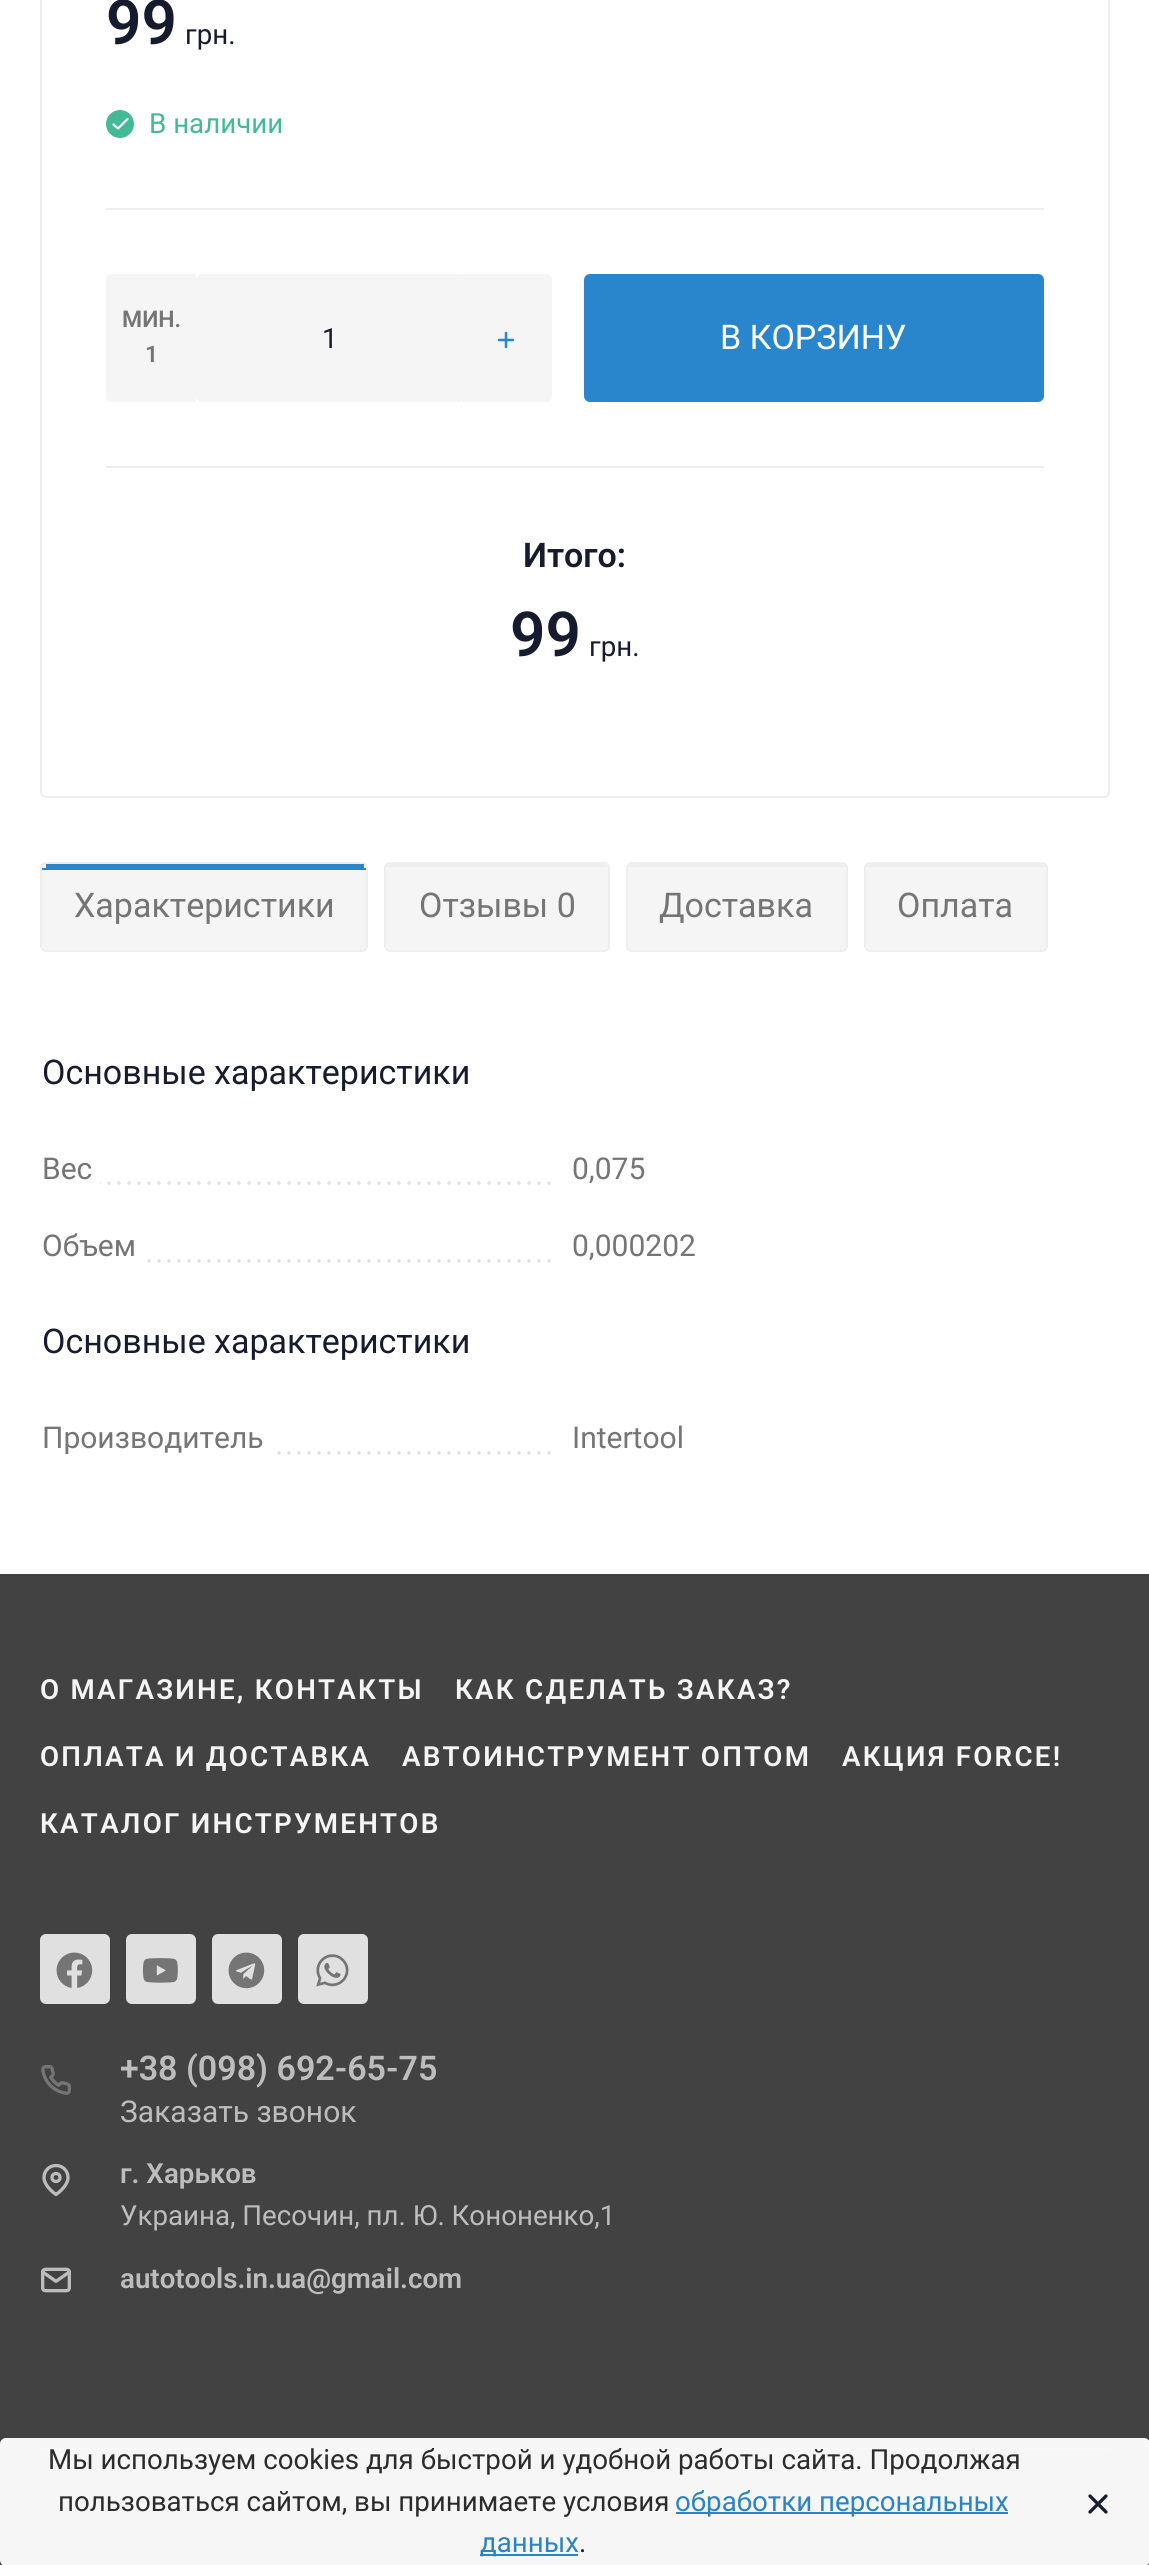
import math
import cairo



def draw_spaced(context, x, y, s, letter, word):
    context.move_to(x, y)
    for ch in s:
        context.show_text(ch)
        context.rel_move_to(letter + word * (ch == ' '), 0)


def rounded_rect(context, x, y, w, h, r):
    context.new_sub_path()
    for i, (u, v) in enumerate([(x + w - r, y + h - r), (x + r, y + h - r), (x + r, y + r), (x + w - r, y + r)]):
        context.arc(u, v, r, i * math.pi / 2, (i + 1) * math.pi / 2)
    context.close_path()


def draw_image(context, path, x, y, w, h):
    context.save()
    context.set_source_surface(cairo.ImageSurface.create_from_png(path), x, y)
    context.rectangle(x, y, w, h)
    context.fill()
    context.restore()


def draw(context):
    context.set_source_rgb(1, 1, 1)
    context.paint()
    rounded_rect(context, 41, -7, 1068, 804, 5)
    context.set_source_rgb(238 / 255, 238 / 255, 238 / 255)
    context.stroke()
    context.set_source_rgb(66 / 255, 186 / 255, 150 / 255)
    context.arc(120, 124, 14, 0, 2 * math.pi)
    context.fill()
    context.new_path()
    context.move_to(127.5, 119)
    context.line_to(118, 128.5)
    context.line_to(113.5, 124.5)
    context.set_source_rgb(1, 1, 1)
    context.set_line_width(2.2)
    context.set_line_cap(cairo.LineCap.ROUND)
    context.set_line_join(cairo.LineJoin.ROUND)
    context.stroke()
    context.set_source_rgb(238 / 255, 238 / 255, 238 / 255)
    context.rectangle(106, 208, 938, 2)
    context.fill()
    context.set_source_rgb(245 / 255, 245 / 255, 245 / 255)
    context.new_path()
    context.move_to(112, 274)
    context.line_to(196, 274)
    context.line_to(196, 402)
    context.line_to(112, 402)
    context.curve_to(108.5, 402, 106, 399.5, 106, 396)
    context.line_to(106, 280)
    context.curve_to(106, 276.5, 108.5, 274, 112, 274)
    context.close_path()
    context.fill()
    rounded_rect(context, 196, 274, 268, 128, 6)
    context.fill()
    context.new_path()
    context.move_to(462, 274)
    context.line_to(546, 274)
    context.curve_to(549.5, 274, 552, 276.5, 552, 280)
    context.line_to(552, 396)
    context.curve_to(552, 399.5, 549.5, 402, 546, 402)
    context.line_to(462, 402)
    context.close_path()
    context.fill()
    context.new_path()
    context.move_to(506, 333)
    context.line_to(506, 347)
    context.move_to(499, 340)
    context.line_to(513, 340)
    context.set_source_rgb(41 / 255, 134 / 255, 204 / 255)
    context.set_line_width(2.5)
    context.stroke()
    rounded_rect(context, 584, 274, 460, 128, 6)
    context.fill()
    context.set_source_rgb(238 / 255, 238 / 255, 238 / 255)
    context.rectangle(106, 466, 938, 2)
    context.fill()
    context.set_source_rgb(245 / 255, 245 / 255, 245 / 255)
    rounded_rect(context, 41, 863, 326, 88, 5)
    context.fill_preserve()
    context.set_source_rgb(238 / 255, 238 / 255, 238 / 255)
    context.set_line_width(2)
    context.set_line_cap(cairo.LineCap.BUTT)
    context.set_line_join(cairo.LineJoin.MITER)
    context.stroke()
    context.set_source_rgb(41 / 255, 134 / 255, 204 / 255)
    context.rectangle(46, 864, 318, 4)
    context.fill()
    context.rectangle(42, 868, 324, 2)
    context.fill()
    context.set_source_rgb(245 / 255, 245 / 255, 245 / 255)
    rounded_rect(context, 385, 863, 224, 88, 5)
    context.fill_preserve()
    context.set_source_rgb(238 / 255, 238 / 255, 238 / 255)
    context.stroke()
    context.new_path()
    context.move_to(392, 864)
    context.curve_to(390, 864, 388, 865, 387, 867)
    context.line_to(607, 867)
    context.curve_to(606, 865, 604, 864, 602, 864)
    context.close_path()
    context.fill()
    context.set_source_rgb(245 / 255, 245 / 255, 245 / 255)
    rounded_rect(context, 627, 863, 220, 88, 5)
    context.fill_preserve()
    context.set_source_rgb(238 / 255, 238 / 255, 238 / 255)
    context.stroke()
    context.new_path()
    context.move_to(634, 864)
    context.curve_to(632, 864, 630, 865, 629, 867)
    context.line_to(845, 867)
    context.curve_to(844, 865, 842, 864, 840, 864)
    context.close_path()
    context.fill()
    context.set_source_rgb(245 / 255, 245 / 255, 245 / 255)
    rounded_rect(context, 865, 863, 182, 88, 5)
    context.fill_preserve()
    context.set_source_rgb(238 / 255, 238 / 255, 238 / 255)
    context.stroke()
    context.new_path()
    context.move_to(872, 864)
    context.curve_to(870, 864, 868, 865, 867, 867)
    context.line_to(1045, 867)
    context.curve_to(1044, 865, 1042, 864, 1040, 864)
    context.close_path()
    context.fill()
    context.new_path()
    context.move_to(49, 1183)
    context.line_to(549.4, 1183)
    context.set_source_rgb(224 / 255, 224 / 255, 224 / 255)
    context.set_line_width(3.5)
    context.set_line_cap(cairo.LineCap.ROUND)
    context.set_dash([0, 10])
    context.stroke()
    context.set_source_rgb(1, 1, 1)
    context.rectangle(47, 1181, 53, 4)
    context.fill()
    context.new_path()
    context.move_to(49, 1261)
    context.line_to(549.4, 1261)
    context.set_source_rgb(224 / 255, 224 / 255, 224 / 255)
    context.stroke()
    context.set_source_rgb(1, 1, 1)
    context.rectangle(47, 1259, 94, 4)
    context.fill()
    context.new_path()
    context.move_to(49, 1453)
    context.line_to(549.4, 1453)
    context.set_source_rgb(224 / 255, 224 / 255, 224 / 255)
    context.stroke()
    context.set_source_rgb(1, 1, 1)
    context.rectangle(47, 1451, 224, 4)
    context.fill()
    context.set_source_rgb(66 / 255, 66 / 255, 66 / 255)
    context.rectangle(0, 1574, 1149, 991)
    context.fill()
    context.set_source_rgb(224 / 255, 224 / 255, 224 / 255)
    rounded_rect(context, 40, 1934, 70, 70, 6)
    context.fill()
    draw_image(context, "images/1.png", 56, 1952, 37, 36)
    rounded_rect(context, 126, 1934, 70, 70, 6)
    context.fill()
    draw_image(context, "images/2.png", 142, 1958, 36, 25)
    rounded_rect(context, 212, 1934, 70, 70, 6)
    context.fill()
    draw_image(context, "images/3.png", 228, 1952, 37, 37)
    rounded_rect(context, 298, 1934, 70, 70, 6)
    context.fill()
    draw_image(context, "images/4.png", 316, 1954, 33, 33)
    draw_image(context, "images/5.png", 41, 2065, 30, 30)
    context.new_path()
    context.move_to(68, 2177.5)
    context.curve_to(68, 2186.5, 56, 2194.5, 56, 2194.5)
    context.curve_to(56, 2194.5, 44, 2186.5, 44, 2177.5)
    context.curve_to(44, 2170.5, 49.5, 2165.5, 56, 2165.5)
    context.curve_to(62.5, 2165.5, 68, 2170.5, 68, 2177.5)
    context.close_path()
    context.set_source_rgb(189 / 255, 189 / 255, 189 / 255)
    context.set_line_width(3.3)
    context.set_line_join(cairo.LineJoin.ROUND)
    context.set_dash([])
    context.stroke()
    context.arc(56, 2177.5, 4, 0, 2 * math.pi)
    context.set_line_cap(cairo.LineCap.BUTT)
    context.set_line_join(cairo.LineJoin.MITER)
    context.stroke()
    draw_image(context, "images/6.png", 41, 2267, 30, 26)
    context.set_source_rgb(97 / 255, 97 / 255, 97 / 255)
    context.rectangle(40, 2448, 1070, 2)
    context.fill()
    context.set_source_rgba(1, 1, 1, 0.95)
    rounded_rect(context, 1, 2439, 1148, 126, 5)
    context.fill_preserve()
    context.set_source_rgb(246 / 255, 246 / 255, 246 / 255)
    context.set_line_width(2)
    context.stroke()
    context.set_source_rgb(42 / 255, 131 / 255, 197 / 255)
    context.rectangle(676, 2512, 332, 2)
    context.fill()
    context.rectangle(480, 2554, 98, 2)
    context.fill()
    context.new_path()
    context.move_to(1106, 2496)
    context.line_to(1090, 2512)
    context.move_to(1090, 2496)
    context.line_to(1106, 2512)
    context.set_source_rgb(24 / 255, 30 / 255, 46 / 255)
    context.set_line_width(3.3)
    context.set_line_cap(cairo.LineCap.ROUND)
    context.set_line_join(cairo.LineJoin.ROUND)
    context.stroke()
    context.select_font_face("Roboto SemiBold")
    context.set_font_size(62)
    context.set_source_rgb(22 / 255, 28 / 255, 45 / 255)
    context.move_to(106, 44)
    context.show_text("99")
    context.select_font_face("Roboto")
    context.set_font_size(27.7)
    context.move_to(185, 44)
    context.show_text("грн.")
    context.set_source_rgb(66 / 255, 186 / 255, 150 / 255)
    context.move_to(149, 133)
    context.show_text("В наличии")
    context.select_font_face("Roboto SemiBold")
    context.set_font_size(23)
    context.set_source_rgb(117 / 255, 117 / 255, 117 / 255)
    context.move_to(122, 327)
    context.show_text("МИН.")
    context.move_to(145, 362)
    context.show_text("1")
    context.select_font_face("Roboto")
    context.set_font_size(27.7)
    context.set_source_rgb(22 / 255, 28 / 255, 45 / 255)
    context.move_to(322, 348)
    context.show_text("1")
    context.set_font_size(34)
    context.set_source_rgb(1, 1, 1)
    context.move_to(720, 349)
    context.show_text("В КОРЗИНУ")
    context.select_font_face("Roboto SemiBold")
    context.set_source_rgb(22 / 255, 28 / 255, 45 / 255)
    context.move_to(523, 567)
    context.show_text("Итого:")
    context.set_font_size(62)
    context.move_to(510, 656)
    context.show_text("99")
    context.select_font_face("Roboto")
    context.set_font_size(27.7)
    context.move_to(589, 656)
    context.show_text("грн.")
    context.set_font_size(34)
    context.set_source_rgb(117 / 255, 117 / 255, 117 / 255)
    context.move_to(74, 917)
    context.show_text("Характеристики")
    context.move_to(419, 917)
    context.show_text("Отзывы 0")
    context.move_to(659, 917)
    context.show_text("Доставка")
    context.move_to(897, 917)
    context.show_text("Оплата")
    context.set_source_rgb(22 / 255, 28 / 255, 45 / 255)
    context.move_to(42, 1084)
    context.show_text("Основные характеристики")
    context.set_font_size(30)
    context.set_source_rgb(117 / 255, 117 / 255, 117 / 255)
    context.move_to(42, 1179)
    context.show_text("Вес")
    context.move_to(572, 1179)
    context.show_text("0,075")
    context.move_to(42, 1256)
    context.show_text("Объем")
    context.move_to(572, 1256)
    context.show_text("0,000202")
    context.set_font_size(34)
    context.set_source_rgb(22 / 255, 28 / 255, 45 / 255)
    context.move_to(42, 1353)
    context.show_text("Основные характеристики")
    context.set_font_size(30)
    context.set_source_rgb(117 / 255, 117 / 255, 117 / 255)
    context.move_to(42, 1448)
    context.show_text("Производитель")
    context.move_to(572, 1448)
    context.show_text("Intertool")
    context.select_font_face("Roboto SemiBold")
    context.set_font_size(27.7)
    context.set_source_rgb(245 / 255, 245 / 255, 245 / 255)
    draw_spaced(context, 40, 1699, "О МАГАЗИНЕ, КОНТАКТЫ", 2.25, 0)
    draw_spaced(context, 455, 1699, "КАК СДЕЛАТЬ ЗАКАЗ?", 2.25, 0)
    draw_spaced(context, 40, 1766, "ОПЛАТА И ДОСТАВКА", 2.25, 0)
    draw_spaced(context, 402, 1766, "АВТОИНСТРУМЕНТ ОПТОМ", 2.25, 0)
    draw_spaced(context, 842, 1766, "АКЦИЯ FORCE!", 2.25, 0)
    draw_spaced(context, 40, 1833, "КАТАЛОГ ИНСТРУМЕНТОВ", 2.25, 0)
    context.set_font_size(34)
    context.set_source_rgb(189 / 255, 189 / 255, 189 / 255)
    context.move_to(120, 2080)
    context.show_text("+38 (098) 692-65-75")
    context.select_font_face("Roboto")
    context.set_font_size(30)
    context.move_to(120, 2122)
    context.show_text("Заказать звонок")
    context.select_font_face("Roboto SemiBold")
    context.set_font_size(27.7)
    context.move_to(120, 2183)
    context.show_text("г. Харьков")
    context.select_font_face("Roboto")
    context.move_to(120, 2225)
    context.show_text("Украина, Песочин, пл. Ю. Кононенко,1")
    context.select_font_face("Roboto SemiBold")
    context.move_to(120, 2288)
    context.show_text("autotools.in.ua@gmail.com")
    context.select_font_face("Roboto")
    context.set_source_rgb(44 / 255, 44 / 255, 44 / 255)
    context.move_to(48, 2469)
    context.show_text("Мы используем cookies для быстрой и удобной работы сайта. Продолжая")
    context.move_to(58, 2511)
    context.show_text("пользоваться сайтом, вы принимаете условия")
    context.set_source_rgb(42 / 255, 131 / 255, 197 / 255)
    context.move_to(675, 2511)
    context.show_text("обработки персональных")
    context.move_to(480, 2552)
    context.show_text("данных")
    context.set_source_rgb(35 / 255, 35 / 255, 35 / 255)
    context.move_to(579, 2552)
    context.show_text(".")


surface = cairo.ImageSurface(cairo.Format.RGB24, 1149, 2565)
context = cairo.Context(surface)
options = cairo.FontOptions()
options.set_hint_metrics(cairo.HintMetrics.OFF)
options.set_hint_style(cairo.HintStyle.NONE)
context.set_font_options(options)
context.set_miter_limit(4)
draw(context)
surface.write_to_png("out.png")
